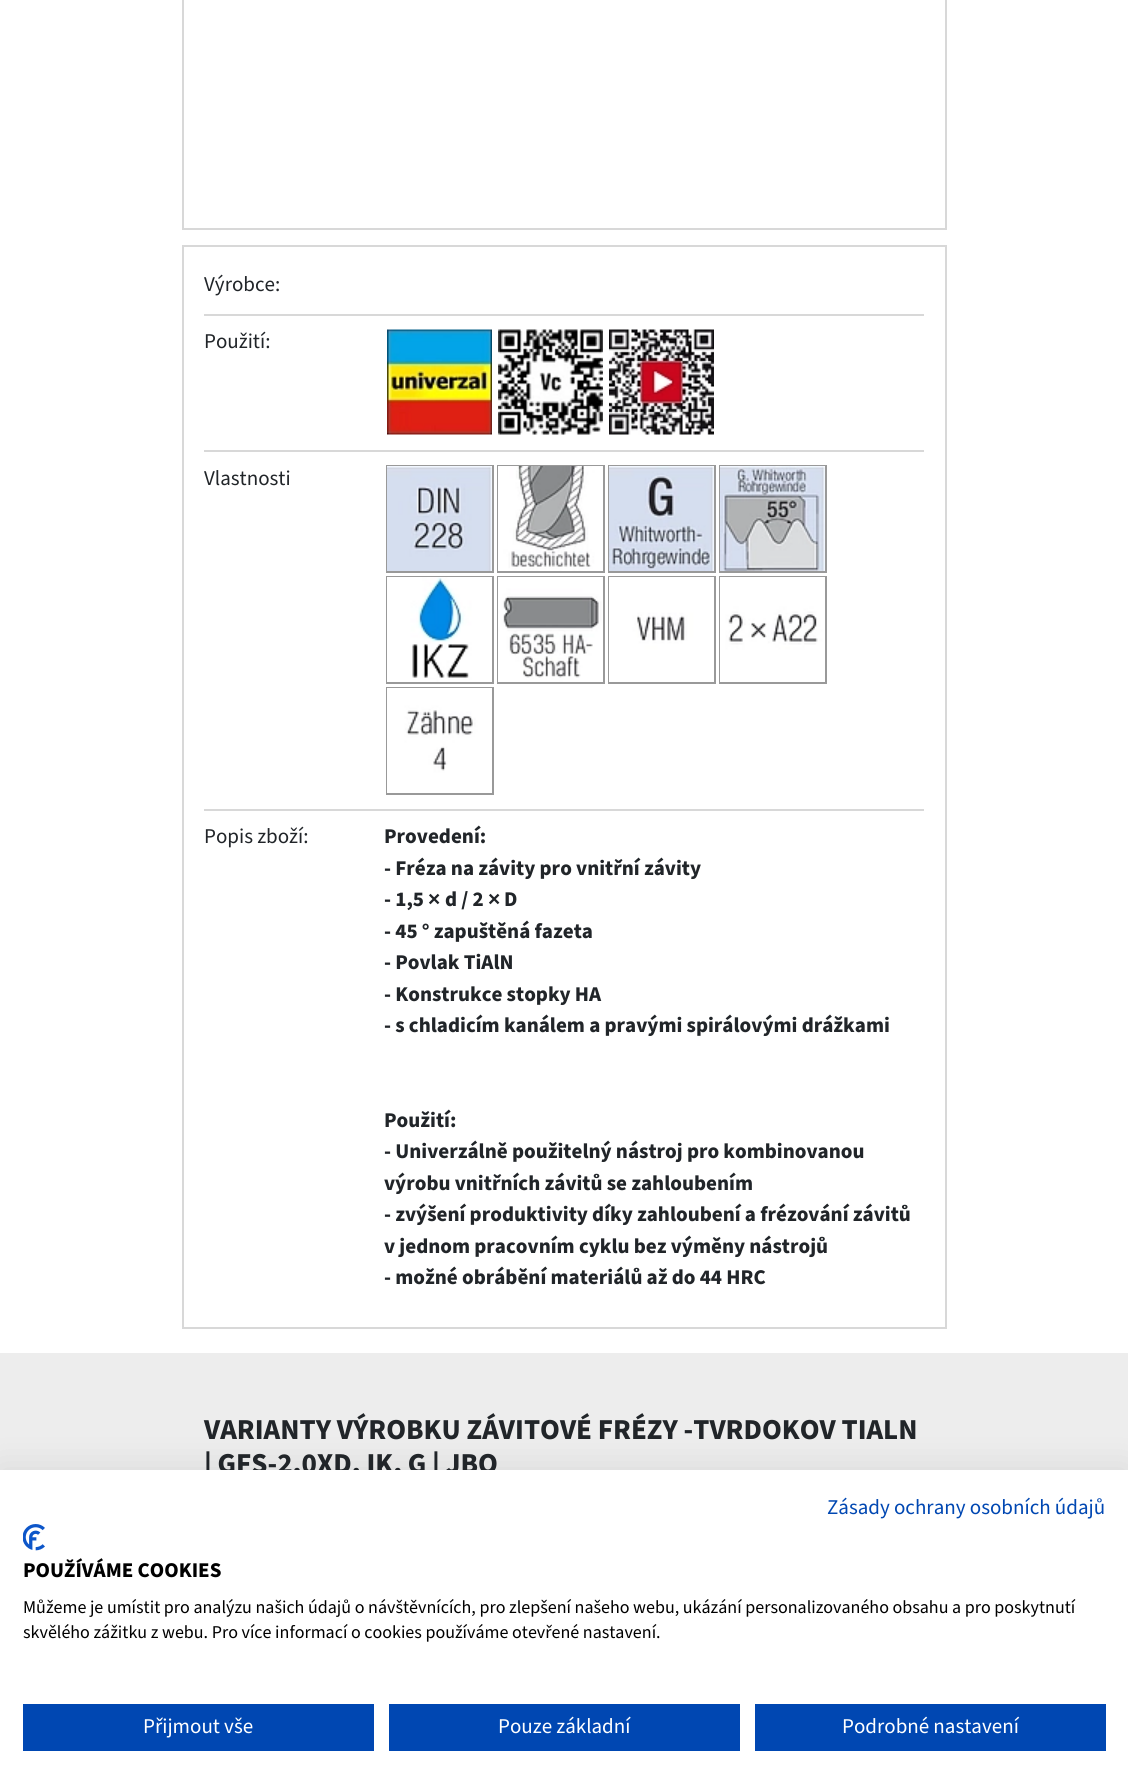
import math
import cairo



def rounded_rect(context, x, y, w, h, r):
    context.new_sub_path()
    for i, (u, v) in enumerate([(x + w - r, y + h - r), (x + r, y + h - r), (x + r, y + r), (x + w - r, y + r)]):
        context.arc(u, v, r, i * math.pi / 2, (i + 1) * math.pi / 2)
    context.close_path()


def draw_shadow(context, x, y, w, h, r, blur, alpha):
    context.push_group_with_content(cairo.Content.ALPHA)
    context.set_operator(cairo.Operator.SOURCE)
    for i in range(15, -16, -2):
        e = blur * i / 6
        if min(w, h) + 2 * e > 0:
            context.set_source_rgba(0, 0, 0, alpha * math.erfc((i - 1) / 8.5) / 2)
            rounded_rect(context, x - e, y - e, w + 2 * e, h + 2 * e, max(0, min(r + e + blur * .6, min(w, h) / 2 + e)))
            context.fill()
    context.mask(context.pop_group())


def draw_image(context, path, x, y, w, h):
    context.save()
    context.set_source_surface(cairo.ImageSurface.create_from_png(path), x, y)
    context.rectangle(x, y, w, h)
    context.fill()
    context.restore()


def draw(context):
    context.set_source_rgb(1, 1, 1)
    context.paint()
    context.rectangle(183, -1, 763, 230)
    context.set_source_rgb(216 / 255, 216 / 255, 216 / 255)
    context.stroke()
    context.rectangle(183, 246, 763, 1082)
    context.stroke()
    context.rectangle(204, 314, 720, 2)
    context.fill()
    context.rectangle(204, 450, 720, 2)
    context.fill()
    draw_image(context, "images/1.png", 387, 329, 105, 106)
    draw_image(context, "images/2.png", 498, 329, 105, 106)
    draw_image(context, "images/3.png", 609, 329, 105, 106)
    context.rectangle(204, 809, 720, 2)
    context.fill()
    context.rectangle(387, 466, 106, 106)
    context.set_source_rgb(153 / 255, 153 / 255, 153 / 255)
    context.stroke()
    draw_image(context, "images/4.png", 387, 466, 105, 105)
    context.rectangle(498, 466, 106, 106)
    context.stroke()
    draw_image(context, "images/5.png", 498, 466, 105, 105)
    context.rectangle(609, 466, 106, 106)
    context.stroke()
    draw_image(context, "images/6.png", 609, 466, 105, 105)
    context.rectangle(720, 466, 106, 106)
    context.stroke()
    draw_image(context, "images/7.png", 720, 466, 105, 105)
    context.rectangle(387, 577, 106, 106)
    context.stroke()
    draw_image(context, "images/8.png", 387, 577, 105, 105)
    context.rectangle(498, 577, 106, 106)
    context.stroke()
    draw_image(context, "images/9.png", 498, 577, 105, 105)
    context.rectangle(609, 577, 106, 106)
    context.stroke()
    draw_image(context, "images/10.png", 609, 577, 105, 105)
    context.rectangle(720, 577, 106, 106)
    context.stroke()
    draw_image(context, "images/11.png", 720, 577, 105, 105)
    context.rectangle(387, 688, 106, 106)
    context.stroke()
    draw_image(context, "images/12.png", 387, 688, 105, 105)
    context.set_source_rgb(237 / 255, 237 / 255, 237 / 255)
    context.rectangle(0, 1353, 1128, 117)
    context.fill()
    context.set_source_rgb(0, 0, 0)
    draw_shadow(context, 0, 1470, 1128, 321, 0, 18, 0.1)
    context.select_font_face("Source Sans Pro")
    context.set_font_size(21)
    context.set_source_rgb(33 / 255, 37 / 255, 41 / 255)
    context.move_to(204, 291)
    context.show_text("Výrobce:")
    context.move_to(204, 348)
    context.show_text("Použití:")
    context.move_to(204, 485)
    context.show_text("Vlastnosti")
    context.move_to(204, 843)
    context.show_text("Popis zboží:")
    context.select_font_face("Source Sans Pro", cairo.FontSlant.NORMAL, cairo.FontWeight.BOLD)
    context.move_to(384, 843)
    context.show_text("Provedení:")
    context.move_to(384, 875)
    context.show_text("- Fréza na závity pro vnitřní závity")
    context.move_to(384, 906)
    context.show_text("- 1,5")
    context.select_font_face("Liberation Sans", cairo.FontSlant.NORMAL, cairo.FontWeight.BOLD)
    context.move_to(428, 906)
    context.show_text("×")
    context.select_font_face("Source Sans Pro", cairo.FontSlant.NORMAL, cairo.FontWeight.BOLD)
    context.move_to(445, 906)
    context.show_text("d / 2")
    context.select_font_face("Liberation Sans", cairo.FontSlant.NORMAL, cairo.FontWeight.BOLD)
    context.move_to(488, 906)
    context.show_text("×")
    context.select_font_face("Source Sans Pro", cairo.FontSlant.NORMAL, cairo.FontWeight.BOLD)
    context.move_to(504, 906)
    context.show_text("D")
    context.move_to(384, 938)
    context.show_text("- 45 ° zapuštěná fazeta")
    context.move_to(384, 969)
    context.show_text("- Povlak TiAlN")
    context.move_to(384, 1001)
    context.show_text("- Konstrukce stopky HA")
    context.move_to(384, 1032)
    context.show_text("- s chladicím kanálem a pravými spirálovými drážkami")
    context.move_to(384, 1127)
    context.show_text("Použití:")
    context.move_to(384, 1158)
    context.show_text("- Univerzálně použitelný nástroj pro kombinovanou")
    context.move_to(384, 1190)
    context.show_text("výrobu vnitřních závitů se zahloubením")
    context.move_to(384, 1221)
    context.show_text("- zvýšení produktivity díky zahloubení a frézování závitů")
    context.move_to(384, 1253)
    context.show_text("v jednom pracovním cyklu bez výměny nástrojů")
    context.move_to(384, 1284)
    context.show_text("- možné obrábění materiálů až do 44 HRC")
    context.set_font_size(28.9)
    context.move_to(204, 1439)
    context.show_text("VARIANTY VÝROBKU ZÁVITOVÉ FRÉZY -TVRDOKOV TIALN")
    context.move_to(204, 1473)
    context.show_text("| GFS-2,0XD, IK, G | JBO")
    context.set_source_rgb(1, 1, 1)
    context.rectangle(0, 1470, 1128, 321)
    context.fill()
    context.select_font_face("Source Sans Pro")
    context.set_font_size(21)
    context.set_source_rgb(0, 71 / 255, 178 / 255)
    context.move_to(827, 1514)
    context.show_text("Zásady ochrany osobních údajů")
    draw_image(context, "images/13.png", 23, 1524, 22, 27)
    context.select_font_face("Source Sans Pro", cairo.FontSlant.NORMAL, cairo.FontWeight.BOLD)
    context.set_source_rgb(0, 0, 0)
    context.move_to(23, 1577)
    context.show_text("POUŽÍVÁME COOKIES")
    context.select_font_face("Source Sans Pro")
    context.set_font_size(18)
    context.move_to(23, 1613)
    context.show_text("Můžeme je umístit pro analýzu našich údajů o návštěvnících, pro zlepšení našeho webu, ukázání personalizovaného obsahu a pro poskytnutí")
    context.move_to(23, 1638)
    context.show_text("skvělého zážitku z webu. Pro více informací o cookies používáme otevřené nastavení.")
    context.set_source_rgb(0, 71 / 255, 178 / 255)
    context.rectangle(23, 1704, 351, 47)
    context.fill()
    context.set_font_size(21)
    context.set_source_rgb(1, 1, 1)
    context.move_to(143, 1733)
    context.show_text("Přijmout vše")
    context.set_source_rgb(0, 71 / 255, 178 / 255)
    context.rectangle(389, 1704, 351, 47)
    context.fill()
    context.set_source_rgb(1, 1, 1)
    context.move_to(498, 1733)
    context.show_text("Pouze základní")
    context.set_source_rgb(0, 71 / 255, 178 / 255)
    context.rectangle(755, 1704, 351, 47)
    context.fill()
    context.set_source_rgb(1, 1, 1)
    context.move_to(842, 1733)
    context.show_text("Podrobné nastavení")


surface = cairo.ImageSurface(cairo.Format.RGB24, 1128, 1791)
context = cairo.Context(surface)
options = cairo.FontOptions()
options.set_hint_metrics(cairo.HintMetrics.OFF)
options.set_hint_style(cairo.HintStyle.NONE)
context.set_font_options(options)
context.set_miter_limit(4)
draw(context)
surface.write_to_png("out.png")
